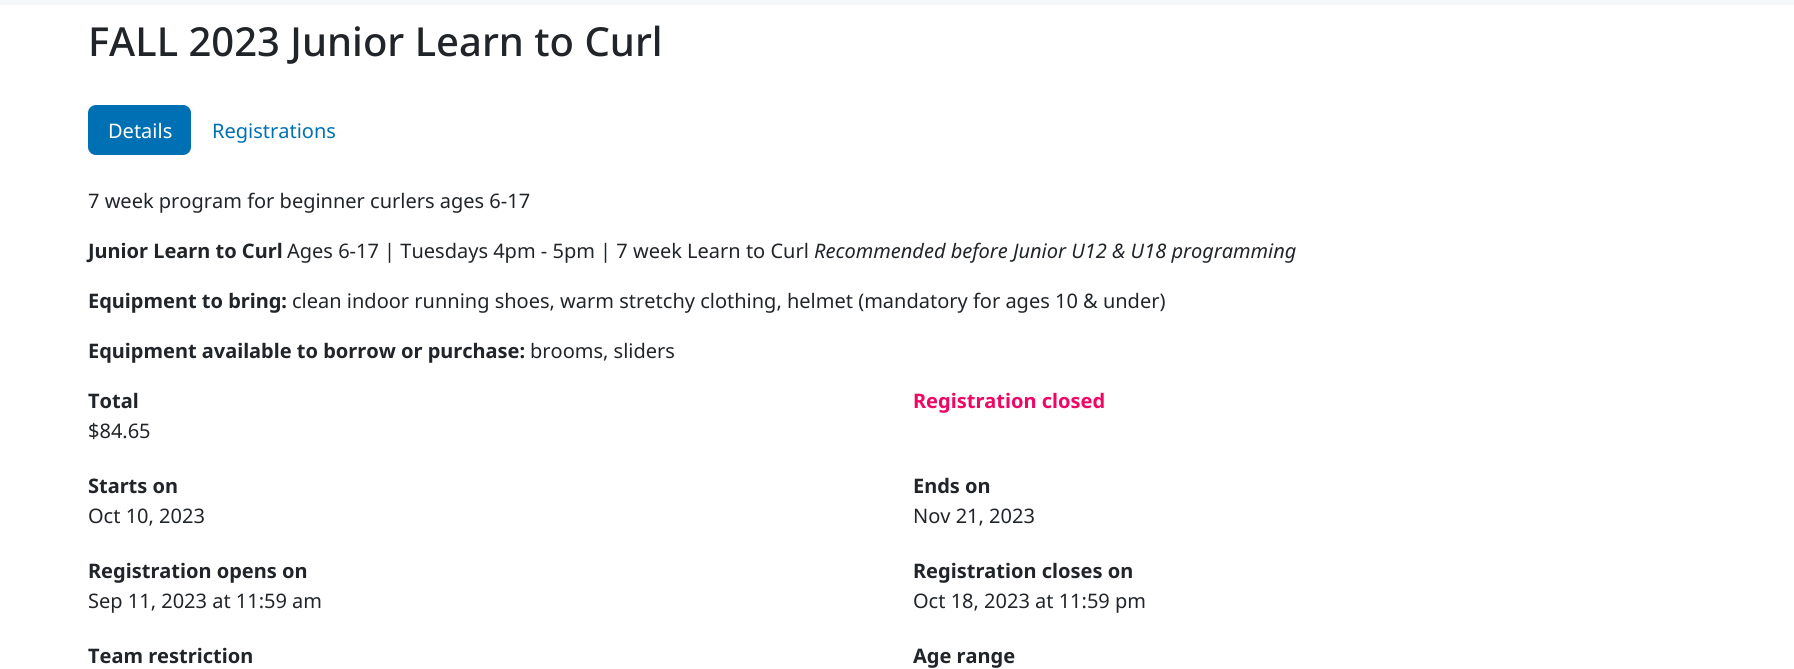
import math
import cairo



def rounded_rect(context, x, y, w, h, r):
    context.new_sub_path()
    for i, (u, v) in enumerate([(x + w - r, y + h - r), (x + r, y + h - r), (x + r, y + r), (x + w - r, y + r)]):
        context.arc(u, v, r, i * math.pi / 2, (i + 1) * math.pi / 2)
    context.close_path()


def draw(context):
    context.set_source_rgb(1, 1, 1)
    context.paint()
    context.set_source_rgb(246 / 255, 247 / 255, 249 / 255)
    context.rectangle(0, 0, 1794, 5)
    context.fill()
    context.set_source_rgb(0, 112 / 255, 180 / 255)
    rounded_rect(context, 88, 105, 103, 50, 8)
    context.fill()
    context.select_font_face("Noto Sans Medium")
    context.set_font_size(40)
    context.set_source_rgb(33 / 255, 37 / 255, 41 / 255)
    context.move_to(88, 56)
    context.show_text("FALL 2023 Junior Learn to Curl")
    context.select_font_face("Noto Sans")
    context.set_font_size(20)
    context.set_source_rgb(1, 1, 1)
    context.move_to(108, 138)
    context.show_text("Details")
    context.set_source_rgb(0, 112 / 255, 180 / 255)
    context.move_to(212, 138)
    context.show_text("Registrations")
    context.set_source_rgb(33 / 255, 37 / 255, 41 / 255)
    context.move_to(88, 208)
    context.show_text("7 week program for beginner curlers ages 6-17")
    context.select_font_face("Noto Sans", cairo.FontSlant.NORMAL, cairo.FontWeight.BOLD)
    context.move_to(88, 258)
    context.show_text("Junior Learn to Curl")
    context.select_font_face("Noto Sans")
    context.move_to(287, 258)
    context.show_text("Ages 6-17 | Tuesdays 4pm - 5pm | 7 week Learn to Curl")
    context.select_font_face("Noto Sans", cairo.FontSlant.ITALIC)
    context.move_to(814, 258)
    context.show_text("Recommended before Junior U12 & U18 programming")
    context.select_font_face("Noto Sans", cairo.FontSlant.NORMAL, cairo.FontWeight.BOLD)
    context.move_to(88, 308)
    context.show_text("Equipment to bring:")
    context.select_font_face("Noto Sans")
    context.move_to(292, 308)
    context.show_text("clean indoor running shoes, warm stretchy clothing, helmet (mandatory for ages 10 & under)")
    context.select_font_face("Noto Sans", cairo.FontSlant.NORMAL, cairo.FontWeight.BOLD)
    context.move_to(88, 358)
    context.show_text("Equipment available to borrow or purchase:")
    context.select_font_face("Noto Sans")
    context.move_to(530, 358)
    context.show_text("brooms, sliders")
    context.select_font_face("Noto Sans", cairo.FontSlant.NORMAL, cairo.FontWeight.BOLD)
    context.move_to(88, 408)
    context.show_text("Total")
    context.select_font_face("Noto Sans")
    context.move_to(88, 438)
    context.show_text("$84.65")
    context.select_font_face("Noto Sans", cairo.FontSlant.NORMAL, cairo.FontWeight.BOLD)
    context.set_source_rgb(240 / 255, 7 / 255, 102 / 255)
    context.move_to(913, 408)
    context.show_text("Registration closed")
    context.set_source_rgb(33 / 255, 37 / 255, 41 / 255)
    context.move_to(88, 493)
    context.show_text("Starts on")
    context.select_font_face("Noto Sans")
    context.move_to(88, 523)
    context.show_text("Oct 10, 2023")
    context.select_font_face("Noto Sans", cairo.FontSlant.NORMAL, cairo.FontWeight.BOLD)
    context.move_to(913, 493)
    context.show_text("Ends on")
    context.select_font_face("Noto Sans")
    context.move_to(913, 523)
    context.show_text("Nov 21, 2023")
    context.select_font_face("Noto Sans", cairo.FontSlant.NORMAL, cairo.FontWeight.BOLD)
    context.move_to(88, 578)
    context.show_text("Registration opens on")
    context.select_font_face("Noto Sans")
    context.move_to(88, 608)
    context.show_text("Sep 11, 2023 at 11:59 am")
    context.select_font_face("Noto Sans", cairo.FontSlant.NORMAL, cairo.FontWeight.BOLD)
    context.move_to(913, 578)
    context.show_text("Registration closes on")
    context.select_font_face("Noto Sans")
    context.move_to(913, 608)
    context.show_text("Oct 18, 2023 at 11:59 pm")
    context.select_font_face("Noto Sans", cairo.FontSlant.NORMAL, cairo.FontWeight.BOLD)
    context.move_to(88, 663)
    context.show_text("Team restriction")
    context.move_to(913, 663)
    context.show_text("Age range")


surface = cairo.ImageSurface(cairo.Format.RGB24, 1794, 669)
context = cairo.Context(surface)
options = cairo.FontOptions()
options.set_hint_metrics(cairo.HintMetrics.OFF)
options.set_hint_style(cairo.HintStyle.NONE)
context.set_font_options(options)
context.set_miter_limit(4)
draw(context)
surface.write_to_png("out.png")
